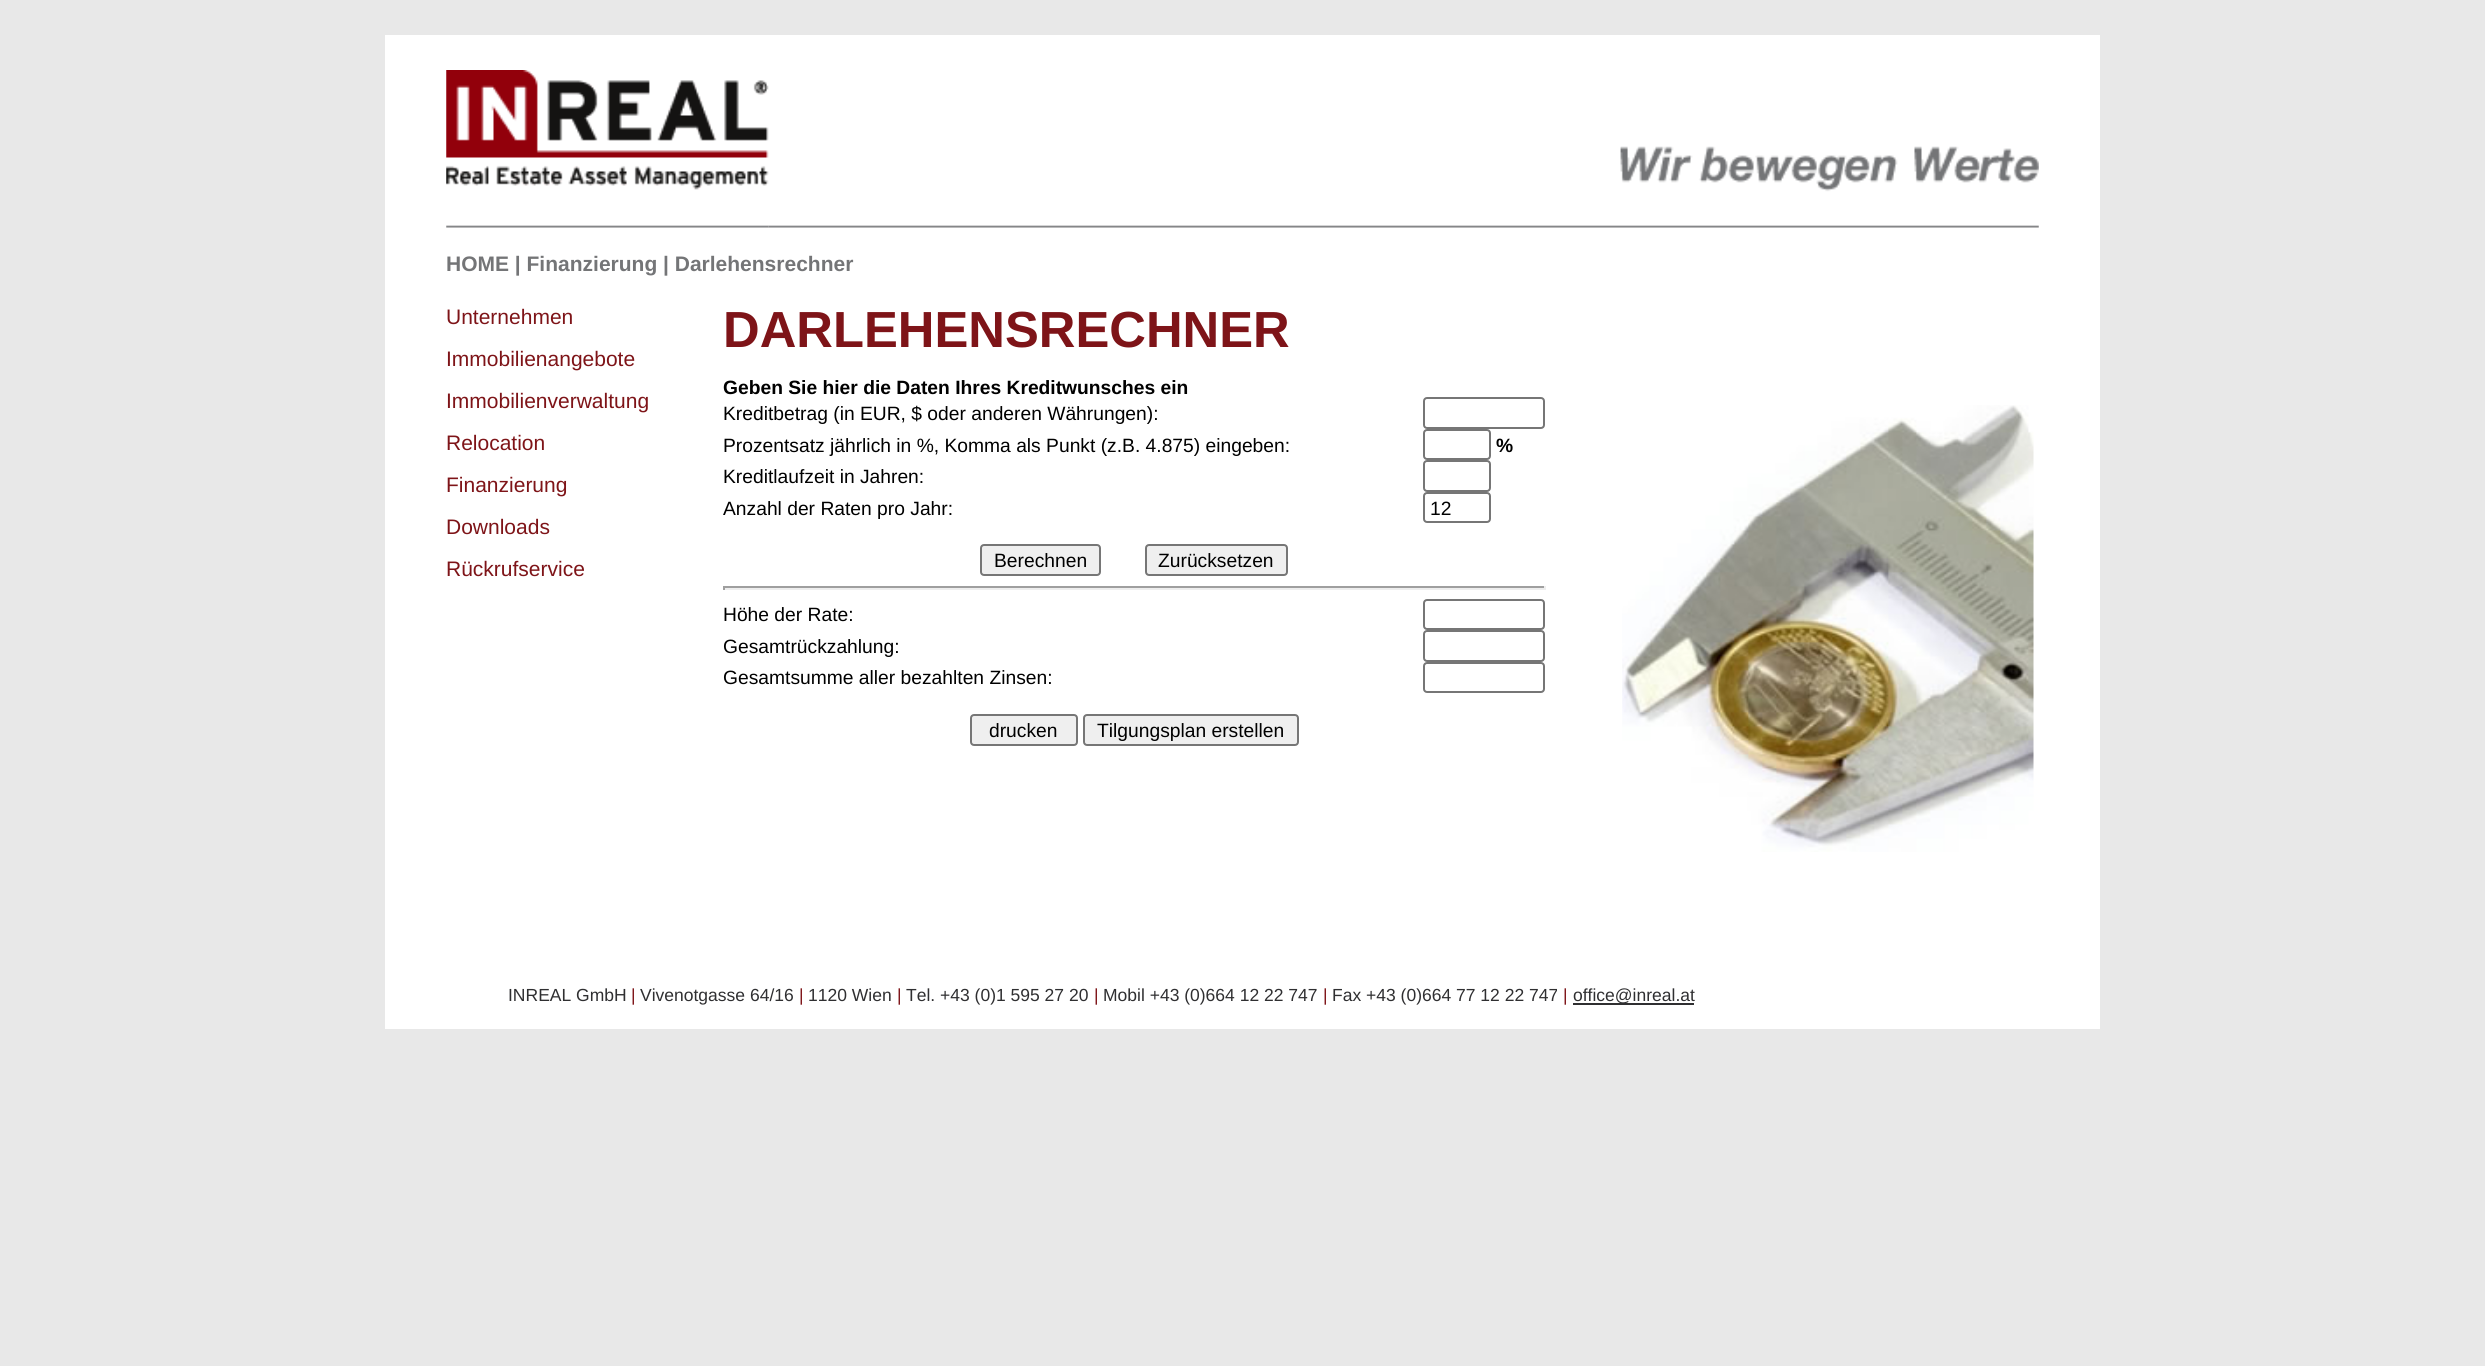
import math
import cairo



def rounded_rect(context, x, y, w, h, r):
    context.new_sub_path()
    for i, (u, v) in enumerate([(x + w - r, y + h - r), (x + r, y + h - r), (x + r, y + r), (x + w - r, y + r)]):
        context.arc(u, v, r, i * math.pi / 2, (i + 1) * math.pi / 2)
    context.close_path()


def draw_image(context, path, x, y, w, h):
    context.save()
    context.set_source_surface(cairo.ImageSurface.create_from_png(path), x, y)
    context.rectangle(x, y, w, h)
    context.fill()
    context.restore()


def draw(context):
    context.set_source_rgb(232 / 255, 232 / 255, 232 / 255)
    context.paint()
    context.set_source_rgb(1, 1, 1)
    context.rectangle(385, 35, 1715, 994)
    context.fill()
    draw_image(context, "images/1.png", 446, 70, 323, 158)
    draw_image(context, "images/2.png", 768, 146, 1271, 82)
    rounded_rect(context, 1424, 398, 120, 30, 3)
    context.set_source_rgb(118 / 255, 118 / 255, 118 / 255)
    context.stroke()
    rounded_rect(context, 1424, 430, 66, 29, 3)
    context.stroke()
    rounded_rect(context, 1424, 461, 66, 30, 3)
    context.stroke()
    rounded_rect(context, 1424, 493, 66, 29, 3)
    context.stroke()
    context.set_source_rgb(239 / 255, 239 / 255, 239 / 255)
    rounded_rect(context, 981, 545, 119, 30, 3)
    context.fill_preserve()
    context.set_source_rgb(118 / 255, 118 / 255, 118 / 255)
    context.stroke()
    context.set_source_rgb(239 / 255, 239 / 255, 239 / 255)
    rounded_rect(context, 1146, 545, 141, 30, 3)
    context.fill_preserve()
    context.set_source_rgb(118 / 255, 118 / 255, 118 / 255)
    context.stroke()
    context.set_source_rgb(159 / 255, 159 / 255, 159 / 255)
    context.rectangle(723, 586, 822, 2)
    context.fill()
    context.set_source_rgb(238 / 255, 238 / 255, 238 / 255)
    context.rectangle(1544, 586, 2, 4)
    context.fill()
    context.rectangle(723, 588, 822, 2)
    context.fill()
    context.set_source_rgb(159 / 255, 159 / 255, 159 / 255)
    context.rectangle(723, 586, 2, 4)
    context.fill()
    rounded_rect(context, 1424, 600, 120, 29, 3)
    context.set_source_rgb(118 / 255, 118 / 255, 118 / 255)
    context.stroke()
    rounded_rect(context, 1424, 631, 120, 30, 3)
    context.stroke()
    rounded_rect(context, 1424, 663, 120, 29, 3)
    context.stroke()
    context.set_source_rgb(239 / 255, 239 / 255, 239 / 255)
    rounded_rect(context, 971, 715, 106, 30, 3)
    context.fill_preserve()
    context.set_source_rgb(118 / 255, 118 / 255, 118 / 255)
    context.stroke()
    context.set_source_rgb(239 / 255, 239 / 255, 239 / 255)
    rounded_rect(context, 1084, 715, 214, 30, 3)
    context.fill_preserve()
    context.set_source_rgb(118 / 255, 118 / 255, 118 / 255)
    context.stroke()
    draw_image(context, "images/3.png", 1622, 405, 412, 447)
    context.set_source_rgb(47 / 255, 47 / 255, 49 / 255)
    context.rectangle(1573, 1003, 121, 2)
    context.fill()
    context.select_font_face("Liberation Sans", cairo.FontSlant.NORMAL, cairo.FontWeight.BOLD)
    context.set_font_size(21)
    context.set_source_rgb(116 / 255, 117 / 255, 119 / 255)
    context.move_to(446, 271)
    context.show_text("HOME | Finanzierung | Darlehensrechner")
    context.select_font_face("Liberation Sans")
    context.set_source_rgb(126 / 255, 20 / 255, 24 / 255)
    context.move_to(446, 324)
    context.show_text("Unternehmen")
    context.move_to(446, 366)
    context.show_text("Immobilienangebote")
    context.move_to(446, 408)
    context.show_text("Immobilienverwaltung")
    context.move_to(446, 450)
    context.show_text("Relocation")
    context.move_to(446, 492)
    context.show_text("Finanzierung")
    context.move_to(446, 534)
    context.show_text("Downloads")
    context.move_to(446, 576)
    context.show_text("Rückrufservice")
    context.select_font_face("Liberation Sans", cairo.FontSlant.NORMAL, cairo.FontWeight.BOLD)
    context.set_font_size(50.75)
    context.move_to(723, 347)
    context.show_text("DARLEHENSRECHNER")
    context.set_font_size(19.25)
    context.set_source_rgb(0, 0, 0)
    context.move_to(723, 394)
    context.show_text("Geben Sie hier die Daten Ihres Kreditwunsches ein")
    context.select_font_face("Liberation Sans")
    context.move_to(723, 420)
    context.show_text("Kreditbetrag (in EUR, $ oder anderen Währungen):")
    context.move_to(723, 452)
    context.show_text("Prozentsatz jährlich in %, Komma als Punkt (z.B. 4.875) eingeben:")
    context.select_font_face("Liberation Sans", cairo.FontSlant.NORMAL, cairo.FontWeight.BOLD)
    context.move_to(1496, 452)
    context.show_text("%")
    context.select_font_face("Liberation Sans")
    context.move_to(723, 483)
    context.show_text("Kreditlaufzeit in Jahren:")
    context.move_to(723, 515)
    context.show_text("Anzahl der Raten pro Jahr:")
    context.move_to(1430, 515)
    context.show_text("12")
    context.move_to(994, 567)
    context.show_text("Berechnen")
    context.move_to(1158, 567)
    context.show_text("Zurücksetzen")
    context.move_to(723, 621)
    context.show_text("Höhe der Rate:")
    context.move_to(723, 653)
    context.show_text("Gesamtrückzahlung:")
    context.move_to(723, 684)
    context.show_text("Gesamtsumme aller bezahlten Zinsen:")
    context.move_to(989, 737)
    context.show_text("drucken")
    context.move_to(1097, 737)
    context.show_text("Tilgungsplan erstellen")
    context.set_font_size(17.5)
    context.set_source_rgb(47 / 255, 47 / 255, 49 / 255)
    context.move_to(508, 1001)
    context.show_text("INREAL GmbH")
    context.set_source_rgb(126 / 255, 20 / 255, 24 / 255)
    context.move_to(631, 1001)
    context.show_text("|")
    context.set_source_rgb(47 / 255, 47 / 255, 49 / 255)
    context.move_to(640, 1001)
    context.show_text("Vivenotgasse 64/16")
    context.set_source_rgb(126 / 255, 20 / 255, 24 / 255)
    context.move_to(799, 1001)
    context.show_text("|")
    context.set_source_rgb(47 / 255, 47 / 255, 49 / 255)
    context.move_to(808, 1001)
    context.show_text("1120 Wien")
    context.set_source_rgb(126 / 255, 20 / 255, 24 / 255)
    context.move_to(897, 1001)
    context.show_text("|")
    context.set_source_rgb(47 / 255, 47 / 255, 49 / 255)
    context.move_to(906, 1001)
    context.show_text("Tel. +43 (0)1 595 27 20")
    context.set_source_rgb(126 / 255, 20 / 255, 24 / 255)
    context.move_to(1094, 1001)
    context.show_text("|")
    context.set_source_rgb(47 / 255, 47 / 255, 49 / 255)
    context.move_to(1103, 1001)
    context.show_text("Mobil +43 (0)664 12 22 747")
    context.set_source_rgb(126 / 255, 20 / 255, 24 / 255)
    context.move_to(1323, 1001)
    context.show_text("|")
    context.set_source_rgb(47 / 255, 47 / 255, 49 / 255)
    context.move_to(1332, 1001)
    context.show_text("Fax +43 (0)664 77 12 22 747")
    context.set_source_rgb(126 / 255, 20 / 255, 24 / 255)
    context.move_to(1563, 1001)
    context.show_text("|")
    context.set_source_rgb(47 / 255, 47 / 255, 49 / 255)
    context.move_to(1573, 1001)
    context.show_text("office@inreal.at")


surface = cairo.ImageSurface(cairo.Format.RGB24, 2485, 1366)
context = cairo.Context(surface)
options = cairo.FontOptions()
options.set_hint_metrics(cairo.HintMetrics.OFF)
options.set_hint_style(cairo.HintStyle.NONE)
context.set_font_options(options)
context.set_miter_limit(4)
draw(context)
surface.write_to_png("out.png")
